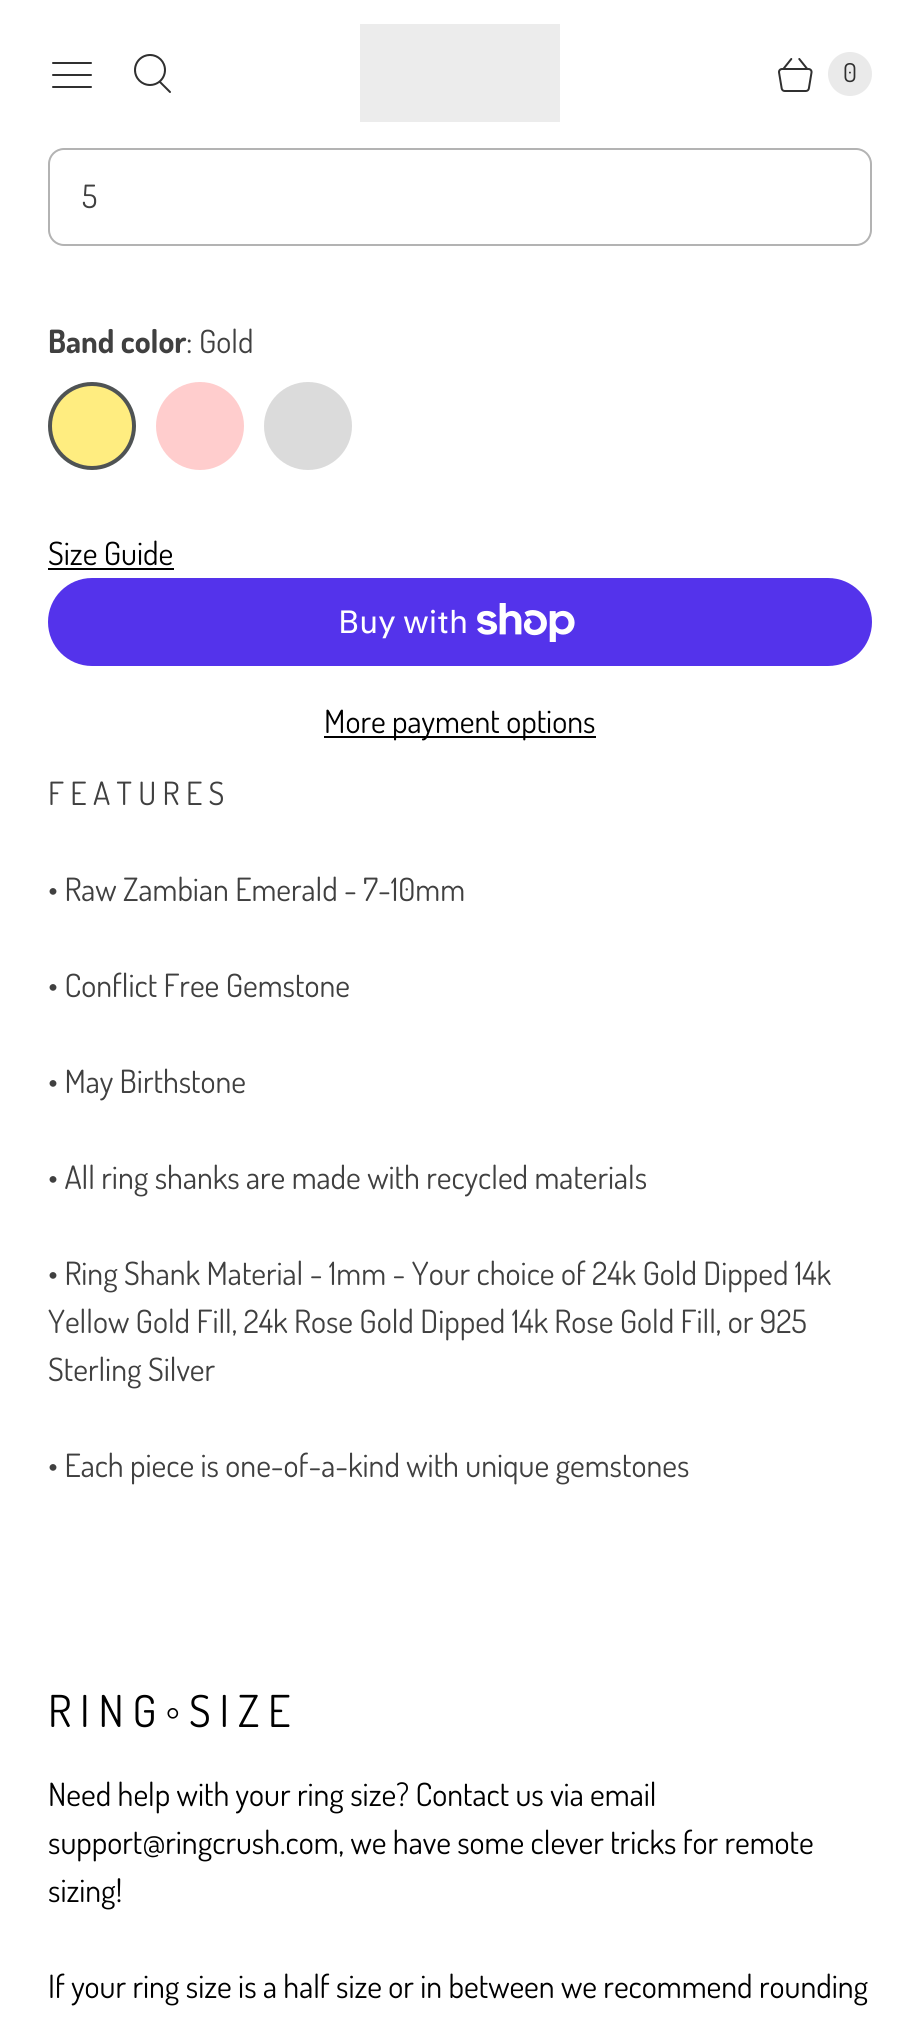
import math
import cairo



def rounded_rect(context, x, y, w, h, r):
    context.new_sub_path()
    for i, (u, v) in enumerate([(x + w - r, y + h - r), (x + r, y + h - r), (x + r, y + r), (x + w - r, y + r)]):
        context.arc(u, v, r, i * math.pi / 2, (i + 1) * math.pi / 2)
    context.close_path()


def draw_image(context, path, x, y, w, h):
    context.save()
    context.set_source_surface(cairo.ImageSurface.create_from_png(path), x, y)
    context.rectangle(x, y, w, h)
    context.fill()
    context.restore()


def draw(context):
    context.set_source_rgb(1, 1, 1)
    context.paint()
    draw_image(context, "images/1.png", 52, 62, 40, 26)
    draw_image(context, "images/2.png", 134, 54, 37, 39)
    context.set_source_rgb(236 / 255, 236 / 255, 236 / 255)
    context.rectangle(360, 24, 200, 98)
    context.fill()
    draw_image(context, "images/3.png", 778, 58, 35, 34)
    context.set_source_rgb(234 / 255, 234 / 255, 234 / 255)
    context.arc(850, 74, 22, 0, 2 * math.pi)
    context.fill()
    rounded_rect(context, 49, 149, 822, 96, 15)
    context.set_source_rgb(179 / 255, 179 / 255, 179 / 255)
    context.stroke()
    context.set_source_rgb(1, 237 / 255, 128 / 255)
    context.arc(92, 426, 42, 0, 2 * math.pi)
    context.fill_preserve()
    context.set_source_rgb(79 / 255, 83 / 255, 84 / 255)
    context.set_line_width(4)
    context.stroke()
    context.set_source_rgb(1, 205 / 255, 205 / 255)
    context.arc(200, 426, 44, 0, 2 * math.pi)
    context.fill()
    context.set_source_rgb(219 / 255, 219 / 255, 219 / 255)
    context.arc(308, 426, 44, 0, 2 * math.pi)
    context.fill()
    context.set_source_rgb(0, 0, 0)
    context.rectangle(48, 568, 126, 2)
    context.fill()
    context.set_source_rgb(84 / 255, 51 / 255, 235 / 255)
    rounded_rect(context, 48, 578, 824, 88, 44)
    context.fill()
    draw_image(context, "images/4.png", 477, 603, 98, 39)
    context.set_source_rgb(0, 0, 0)
    context.rectangle(324, 736, 272, 2)
    context.fill()
    context.select_font_face("Dosis")
    context.set_font_size(26)
    context.set_source_rgb(48 / 255, 48 / 255, 48 / 255)
    context.move_to(843, 82)
    context.show_text("0")
    context.set_font_size(32)
    context.set_source_rgb(64 / 255, 64 / 255, 64 / 255)
    context.move_to(82, 208)
    context.show_text("5")
    context.select_font_face("Dosis", cairo.FontSlant.NORMAL, cairo.FontWeight.BOLD)
    context.move_to(48, 353)
    context.show_text("Band color")
    context.select_font_face("Dosis")
    context.move_to(186, 353)
    context.show_text(":")
    context.move_to(199, 353)
    context.show_text("Gold")
    context.set_source_rgb(0, 0, 0)
    context.move_to(48, 565)
    context.show_text("Size Guide")
    context.select_font_face("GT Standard")
    context.set_source_rgb(1, 1, 1)
    context.move_to(338, 633)
    context.show_text("Buy with")
    context.select_font_face("Dosis")
    context.set_source_rgb(0, 0, 0)
    context.move_to(324, 733)
    context.show_text("More payment options")
    context.set_source_rgb(64 / 255, 64 / 255, 64 / 255)
    context.move_to(48, 805)
    context.show_text("F E A T U R E S")
    context.move_to(48, 901)
    context.show_text("• Raw Zambian Emerald - 7-10mm")
    context.move_to(48, 997)
    context.show_text("• Conflict Free Gemstone")
    context.move_to(48, 1093)
    context.show_text("• May Birthstone")
    context.move_to(48, 1189)
    context.show_text("• All ring shanks are made with recycled materials")
    context.move_to(48, 1285)
    context.show_text("• Ring Shank Material - 1mm - Your choice of 24k Gold Dipped 14k")
    context.move_to(48, 1333)
    context.show_text("Yellow Gold Fill, 24k Rose Gold Dipped 14k Rose Gold Fill, or 925")
    context.move_to(48, 1381)
    context.show_text("Sterling Silver")
    context.move_to(48, 1477)
    context.show_text("• Each piece is one-of-a-kind with unique gemstones")
    context.set_font_size(44)
    context.set_source_rgb(0, 0, 0)
    context.move_to(48, 1727)
    context.show_text("R I N G")
    context.select_font_face("Liberation Sans")
    context.move_to(165, 1727)
    context.show_text("◦")
    context.select_font_face("Dosis")
    context.move_to(189, 1727)
    context.show_text("S I Z E")
    context.set_font_size(32)
    context.move_to(48, 1806)
    context.show_text("Need help with your ring size? Contact us via email")
    context.move_to(48, 1854)
    context.show_text("support@ringcrush.com, we have some clever tricks for remote")
    context.move_to(48, 1902)
    context.show_text("sizing!")
    context.move_to(48, 1998)
    context.show_text("If your ring size is a half size or in between we recommend rounding")


surface = cairo.ImageSurface(cairo.Format.RGB24, 920, 2019)
context = cairo.Context(surface)
options = cairo.FontOptions()
options.set_hint_metrics(cairo.HintMetrics.OFF)
options.set_hint_style(cairo.HintStyle.NONE)
context.set_font_options(options)
context.set_miter_limit(4)
draw(context)
surface.write_to_png("out.png")
